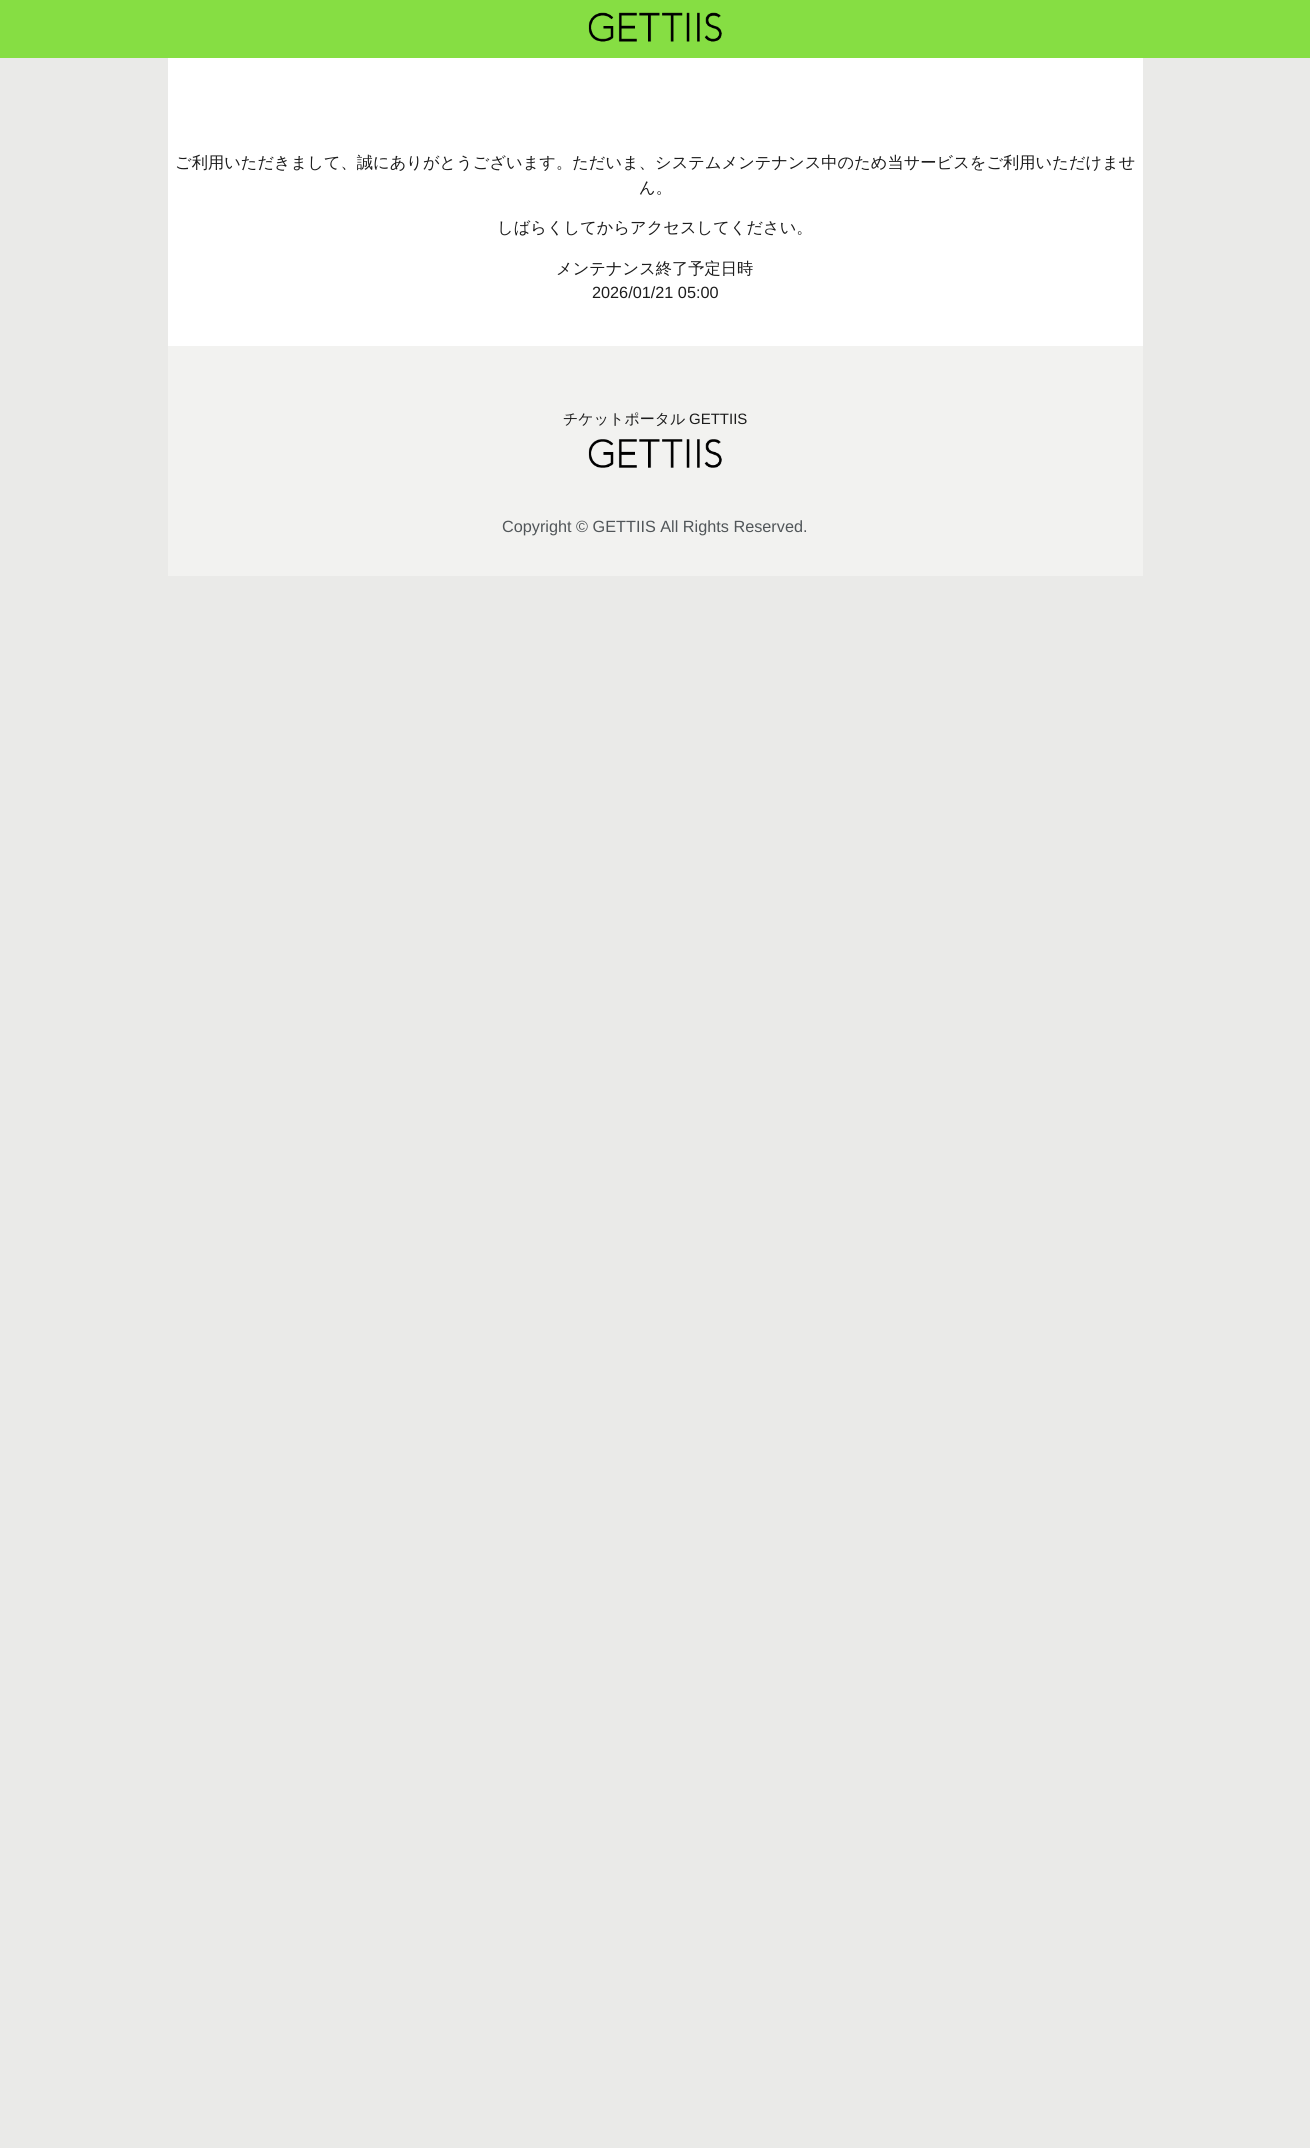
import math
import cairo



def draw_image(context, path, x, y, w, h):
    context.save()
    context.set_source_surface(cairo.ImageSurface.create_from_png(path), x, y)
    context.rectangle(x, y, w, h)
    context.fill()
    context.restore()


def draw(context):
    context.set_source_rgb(234 / 255, 234 / 255, 232 / 255)
    context.paint()
    context.set_source_rgb(134 / 255, 222 / 255, 67 / 255)
    context.rectangle(0, 0, 1310, 58)
    context.fill()
    draw_image(context, "images/1.png", 588, 12, 134, 30)
    context.set_source_rgb(1, 1, 1)
    context.rectangle(168, 58, 975, 288)
    context.fill()
    context.set_source_rgb(242 / 255, 242 / 255, 240 / 255)
    context.rectangle(168, 346, 975, 230)
    context.fill()
    draw_image(context, "images/2.png", 588, 439, 134, 29)
    context.select_font_face("WenQuanYi Zen Hei Medium")
    context.set_font_size(16.25)
    context.set_source_rgb(28 / 255, 28 / 255, 28 / 255)
    context.move_to(175, 168)
    context.show_text("ご利用いただきまして、誠にありがとうございます。ただいま、システムメンテナンス中のため当サービスをご利用いただけませ")
    context.move_to(639, 193)
    context.show_text("ん。")
    context.move_to(497, 233)
    context.show_text("しばらくしてからアクセスしてください。")
    context.move_to(556, 274)
    context.show_text("メンテナンス終了予定日時")
    context.select_font_face("Liberation Sans")
    context.move_to(592, 298)
    context.show_text("2026/01/21 05:00")
    context.select_font_face("WenQuanYi Zen Hei Medium")
    context.set_font_size(15)
    context.move_to(563, 424)
    context.show_text("チケットポータル")
    context.select_font_face("Liberation Sans")
    context.move_to(689, 424)
    context.show_text("GETTIIS")
    context.set_font_size(16.25)
    context.set_source_rgb(81 / 255, 86 / 255, 89 / 255)
    context.move_to(502, 532)
    context.show_text("Copyright © GETTIIS All Rights Reserved.")


surface = cairo.ImageSurface(cairo.Format.RGB24, 1310, 2148)
context = cairo.Context(surface)
options = cairo.FontOptions()
options.set_hint_metrics(cairo.HintMetrics.OFF)
options.set_hint_style(cairo.HintStyle.NONE)
context.set_font_options(options)
context.set_miter_limit(4)
draw(context)
surface.write_to_png("out.png")
